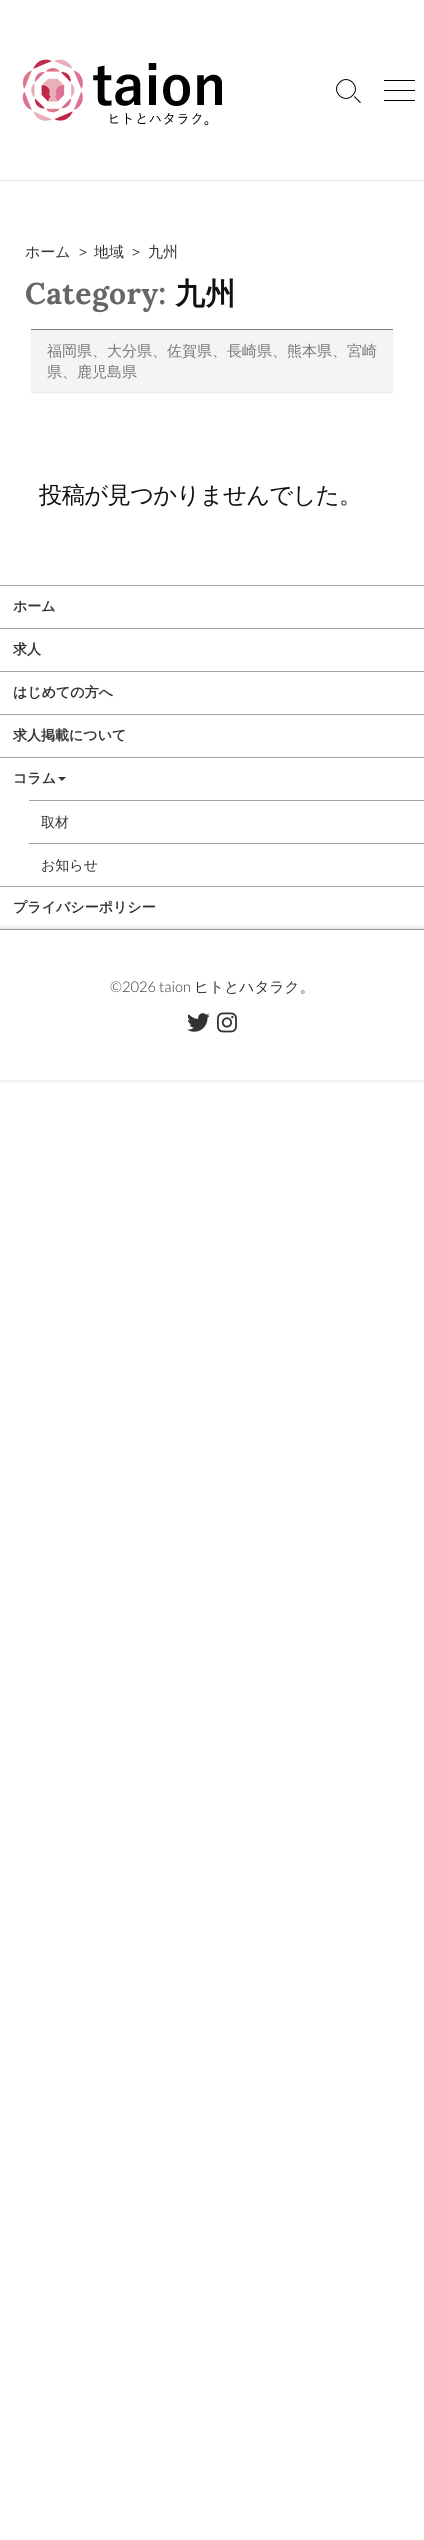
import math
import cairo



def draw_spaced(context, x, y, s, letter, word):
    context.move_to(x, y)
    for ch in s:
        context.show_text(ch)
        context.rel_move_to(letter + word * (ch == ' '), 0)


def rounded_rect(context, x, y, w, h, r):
    context.new_sub_path()
    for i, (u, v) in enumerate([(x + w - r, y + h - r), (x + r, y + h - r), (x + r, y + r), (x + w - r, y + r)]):
        context.arc(u, v, r, i * math.pi / 2, (i + 1) * math.pi / 2)
    context.close_path()


def draw_shadow(context, x, y, w, h, r, blur, alpha):
    context.push_group_with_content(cairo.Content.ALPHA)
    context.set_operator(cairo.Operator.SOURCE)
    for i in range(15, -16, -2):
        e = blur * i / 6
        if min(w, h) + 2 * e > 0:
            context.set_source_rgba(0, 0, 0, alpha * math.erfc((i - 1) / 8.5) / 2)
            rounded_rect(context, x - e, y - e, w + 2 * e, h + 2 * e, max(0, min(r + e + blur * .6, min(w, h) / 2 + e)))
            context.fill()
    context.mask(context.pop_group())


def draw_image(context, path, x, y, w, h):
    context.save()
    context.set_source_surface(cairo.ImageSurface.create_from_png(path), x, y)
    context.rectangle(x, y, w, h)
    context.fill()
    context.restore()


def draw(context):
    context.set_source_rgb(1, 1, 1)
    context.paint()
    context.save()
    context.rectangle(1, 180, 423, 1)
    context.clip()
    context.set_source_rgb(0, 0, 0)
    draw_shadow(context, 1, 0, 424, 180, 0, 0.5, 0.4)
    context.restore()
    draw_image(context, "images/1.png", 22, 59, 200, 67)
    context.new_path()
    context.move_to(339.5, 82.5)
    context.curve_to(348, 73.5, 361.5, 87, 352.5, 95.5)
    context.curve_to(344, 104.5, 330.5, 91, 339.5, 82.5)
    context.close_path()
    context.set_source_rgb(0, 0, 0)
    context.set_line_width(1)
    context.stroke()
    context.new_path()
    context.move_to(354, 97)
    context.line_to(354.5, 96)
    context.line_to(361, 102.5)
    context.line_to(360, 103)
    context.close_path()
    context.fill()
    context.rectangle(384, 80, 31, 1)
    context.fill()
    context.rectangle(384, 90, 31, 1)
    context.fill()
    context.rectangle(384, 100, 31, 1)
    context.fill()
    context.set_source_rgb(0, 0, 0)
    draw_shadow(context, 31, 330, 362, 63, 0, 0.5, 0.08)
    context.set_source_rgb(244 / 255, 244 / 255, 244 / 255)
    context.rectangle(31, 330, 362, 62)
    context.fill()
    context.set_source_rgb(119 / 255, 119 / 255, 119 / 255)
    context.rectangle(31, 329, 362, 1)
    context.fill()
    context.set_source_rgb(161 / 255, 161 / 255, 161 / 255)
    context.rectangle(0, 585, 424, 1)
    context.fill()
    context.rectangle(0, 628, 424, 1)
    context.fill()
    context.rectangle(0, 671, 424, 1)
    context.fill()
    context.rectangle(0, 714, 424, 1)
    context.fill()
    context.rectangle(0, 757, 424, 1)
    context.fill()
    context.set_source_rgb(51 / 255, 51 / 255, 51 / 255)
    context.new_path()
    context.move_to(58, 777)
    context.line_to(66, 777)
    context.line_to(62, 781)
    context.close_path()
    context.fill()
    context.set_source_rgb(161 / 255, 161 / 255, 161 / 255)
    context.rectangle(29, 800, 395, 1)
    context.fill()
    context.rectangle(29, 843, 395, 1)
    context.fill()
    context.rectangle(0, 886, 424, 1)
    context.fill()
    context.save()
    context.set_fill_rule(cairo.FillRule.EVEN_ODD)
    context.new_path()
    context.move_to(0, 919)
    context.line_to(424, 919)
    context.line_to(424, 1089)
    context.line_to(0, 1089)
    context.close_path()
    context.move_to(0, 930)
    context.line_to(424, 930)
    context.line_to(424, 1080)
    context.line_to(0, 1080)
    context.close_path()
    context.clip()
    context.set_source_rgb(0, 0, 0)
    draw_shadow(context, 0, 929, 424, 150, 0, 3, 0.2)
    context.restore()
    context.set_source_rgba(120 / 255, 120 / 255, 120 / 255, 0.7)
    context.rectangle(0, 929, 424, 1)
    context.fill()
    draw_image(context, "images/2.png", 187, 1013, 23, 19)
    draw_image(context, "images/3.png", 217, 1012, 20, 21)
    context.select_font_face("WenQuanYi Zen Hei Medium")
    context.set_font_size(15)
    context.set_source_rgb(51 / 255, 51 / 255, 51 / 255)
    context.move_to(25, 257)
    context.show_text("ホーム")
    context.select_font_face("Lora")
    context.move_to(79, 257)
    context.show_text(">")
    context.select_font_face("WenQuanYi Zen Hei Medium")
    context.move_to(94, 257)
    context.show_text("地域")
    context.select_font_face("Lora")
    context.move_to(132, 257)
    context.show_text(">")
    context.select_font_face("WenQuanYi Zen Hei Medium")
    context.move_to(148, 257)
    context.show_text("九州")
    context.select_font_face("Lora", cairo.FontSlant.NORMAL, cairo.FontWeight.BOLD)
    context.set_font_size(30)
    context.set_source_rgb(102 / 255, 102 / 255, 102 / 255)
    draw_spaced(context, 25, 304, "Category:", 0.5, 0)
    context.select_font_face("WenQuanYi Zen Hei", cairo.FontSlant.NORMAL, cairo.FontWeight.BOLD)
    context.set_source_rgb(17 / 255, 17 / 255, 17 / 255)
    draw_spaced(context, 175, 304, "九州", 0.5, 0)
    context.select_font_face("WenQuanYi Zen Hei Medium")
    context.set_font_size(15)
    context.set_source_rgb(119 / 255, 119 / 255, 119 / 255)
    context.move_to(47, 356)
    context.show_text("福岡県、大分県、佐賀県、長崎県、熊本県、宮崎")
    context.move_to(47, 377)
    context.show_text("県、鹿児島県")
    context.set_font_size(23.4)
    context.set_source_rgb(17 / 255, 17 / 255, 17 / 255)
    draw_spaced(context, 39, 503, "投稿が見つかりませんでした。", -0.75, 0)
    context.select_font_face("WenQuanYi Zen Hei", cairo.FontSlant.NORMAL, cairo.FontWeight.BOLD)
    context.set_font_size(14)
    context.set_source_rgb(51 / 255, 51 / 255, 51 / 255)
    context.move_to(13, 611)
    context.show_text("ホーム")
    context.move_to(13, 654)
    context.show_text("求人")
    context.move_to(13, 697)
    context.show_text("はじめての方へ")
    context.move_to(13, 740)
    context.show_text("求人掲載について")
    context.move_to(13, 783)
    context.show_text("コラム")
    context.select_font_face("WenQuanYi Zen Hei Medium")
    context.move_to(41, 827)
    context.show_text("取材")
    context.move_to(41, 870)
    context.show_text("お知らせ")
    context.select_font_face("WenQuanYi Zen Hei", cairo.FontSlant.NORMAL, cairo.FontWeight.BOLD)
    context.move_to(13, 912)
    context.show_text("プライバシーポリシー")
    context.select_font_face("Lato Light")
    context.set_font_size(14.75)
    context.move_to(110, 992)
    context.show_text("©2026 taion")
    context.select_font_face("WenQuanYi Zen Hei Medium")
    context.move_to(194, 992)
    context.show_text("ヒトとハタラク。")


surface = cairo.ImageSurface(cairo.Format.RGB24, 424, 2540)
context = cairo.Context(surface)
options = cairo.FontOptions()
options.set_hint_metrics(cairo.HintMetrics.OFF)
options.set_hint_style(cairo.HintStyle.NONE)
context.set_font_options(options)
context.set_miter_limit(4)
draw(context)
surface.write_to_png("out.png")
